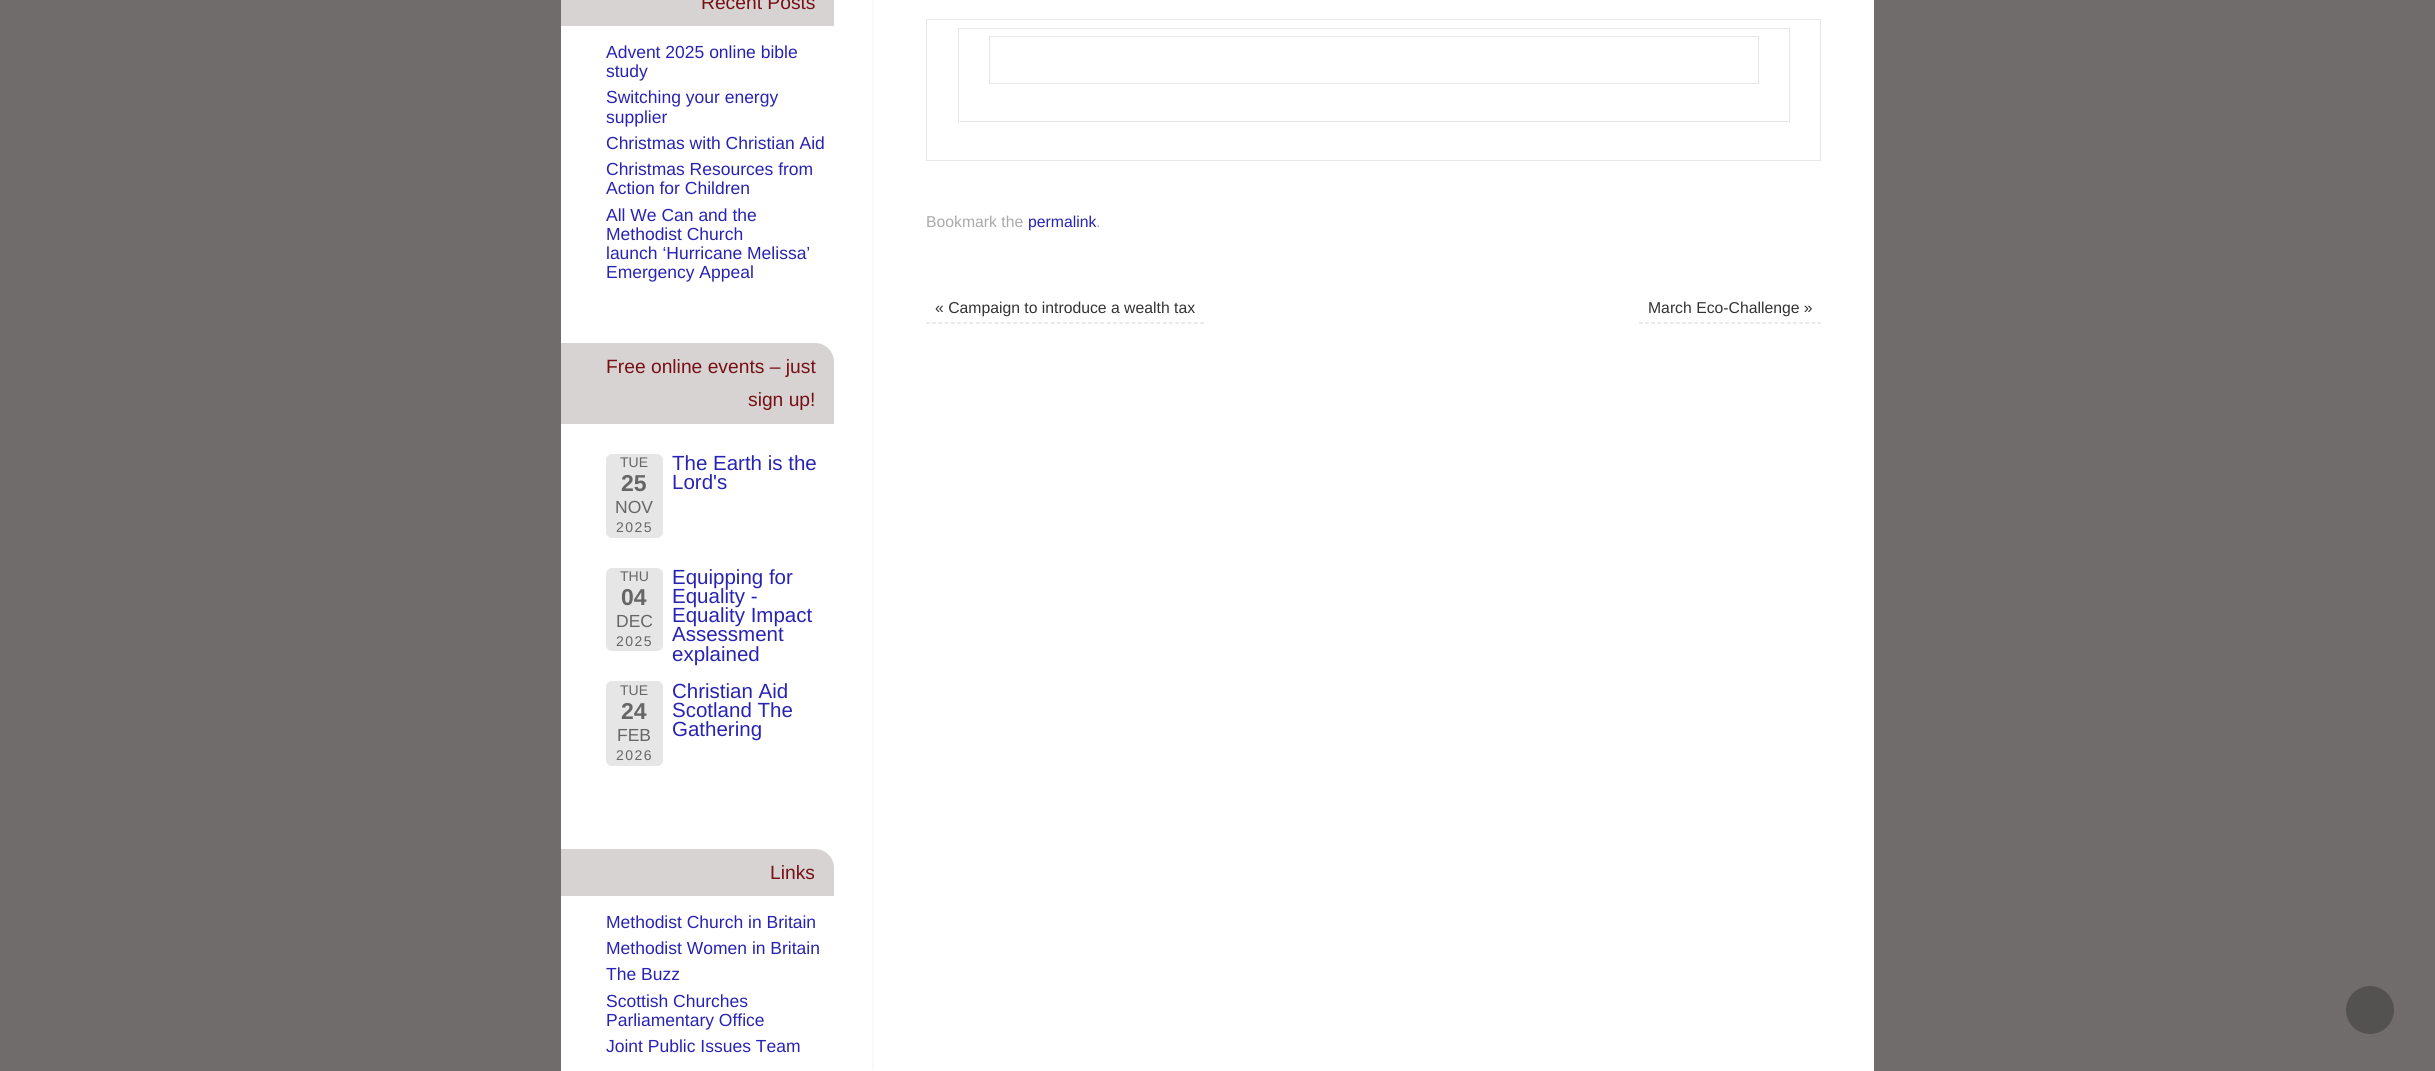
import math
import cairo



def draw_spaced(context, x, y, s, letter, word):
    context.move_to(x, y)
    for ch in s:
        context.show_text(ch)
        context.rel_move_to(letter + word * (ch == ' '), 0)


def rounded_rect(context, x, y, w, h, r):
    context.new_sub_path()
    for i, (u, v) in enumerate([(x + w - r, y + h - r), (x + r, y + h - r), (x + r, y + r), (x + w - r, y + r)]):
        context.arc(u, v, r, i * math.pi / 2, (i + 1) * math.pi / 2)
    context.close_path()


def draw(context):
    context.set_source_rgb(112 / 255, 108 / 255, 108 / 255)
    context.paint()
    context.set_source_rgb(1, 1, 1)
    context.rectangle(561, 0, 1313, 1071)
    context.fill()
    context.new_path()
    context.move_to(873, -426)
    context.line_to(873, 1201)
    context.set_source_rgb(238 / 255, 238 / 255, 238 / 255)
    context.set_line_width(1.2)
    context.set_dash([1.25, 1.25])
    context.stroke()
    context.set_source_rgb(215 / 255, 211 / 255, 211 / 255)
    context.rectangle(561, 0, 273, 26)
    context.fill()
    context.new_path()
    context.move_to(561, 343)
    context.line_to(815, 343)
    context.curve_to(825.5, 343, 834, 351.5, 834, 362)
    context.line_to(834, 424)
    context.line_to(561, 424)
    context.close_path()
    context.fill()
    context.set_source_rgb(230 / 255, 230 / 255, 230 / 255)
    rounded_rect(context, 606, 454, 57, 84, 6)
    context.fill()
    rounded_rect(context, 606, 568, 57, 83, 6)
    context.fill()
    rounded_rect(context, 606, 681, 57, 85, 6)
    context.fill()
    context.set_source_rgb(215 / 255, 211 / 255, 211 / 255)
    context.new_path()
    context.move_to(561, 849)
    context.line_to(815, 849)
    context.curve_to(825.5, 849, 834, 857.5, 834, 868)
    context.line_to(834, 896)
    context.line_to(561, 896)
    context.close_path()
    context.fill()
    context.set_source_rgb(231 / 255, 231 / 255, 231 / 255)
    context.rectangle(926, 19, 895, 1)
    context.fill()
    context.rectangle(1820, 19, 1, 142)
    context.fill()
    context.rectangle(926, 160, 895, 1)
    context.fill()
    context.rectangle(926, 19, 1, 142)
    context.fill()
    context.rectangle(958, 28, 832, 1)
    context.fill()
    context.rectangle(1789, 28, 1, 95)
    context.fill()
    context.rectangle(958, 121, 832, 1)
    context.fill()
    context.rectangle(958, 28, 1, 95)
    context.fill()
    context.rectangle(989, 36, 770, 1)
    context.fill()
    context.rectangle(1758, 36, 1, 48)
    context.fill()
    context.rectangle(989, 83, 770, 1)
    context.fill()
    context.rectangle(989, 36, 1, 48)
    context.fill()
    context.new_path()
    context.move_to(926, 323)
    context.line_to(1204, 323)
    context.set_source_rgb(221 / 255, 221 / 255, 221 / 255)
    context.set_dash([3.75, 2.48])
    context.stroke()
    context.new_path()
    context.move_to(1639, 323)
    context.line_to(1821, 323)
    context.set_dash([3.75, 2.41])
    context.stroke()
    context.set_source_rgb(84 / 255, 81 / 255, 81 / 255)
    context.arc(2370, 1010, 24, 0, 2 * math.pi)
    context.fill()
    context.select_font_face("Liberation Sans")
    context.set_font_size(19.25)
    context.set_source_rgb(119 / 255, 16 / 255, 21 / 255)
    context.move_to(701, 9)
    context.show_text("Recent Posts")
    context.set_font_size(17.5)
    context.set_source_rgb(40 / 255, 35 / 255, 179 / 255)
    context.move_to(606, 58)
    context.show_text("Advent 2025 online bible")
    context.move_to(606, 77)
    context.show_text("study")
    context.move_to(606, 103)
    context.show_text("Switching your energy")
    context.move_to(606, 123)
    context.show_text("supplier")
    context.move_to(606, 149)
    context.show_text("Christmas with Christian Aid")
    context.move_to(606, 175)
    context.show_text("Christmas Resources from")
    context.move_to(606, 194)
    context.show_text("Action for Children")
    context.move_to(606, 221)
    context.show_text("All We Can and the")
    context.move_to(606, 240)
    context.show_text("Methodist Church")
    context.move_to(606, 259)
    context.show_text("launch ‘Hurricane Melissa’")
    context.move_to(606, 278)
    context.show_text("Emergency Appeal")
    context.set_font_size(19.25)
    context.set_source_rgb(119 / 255, 16 / 255, 21 / 255)
    context.move_to(606, 373)
    context.show_text("Free online events – just")
    context.move_to(748, 406)
    context.show_text("sign up!")
    context.set_font_size(14)
    context.set_source_rgb(102 / 255, 102 / 255, 102 / 255)
    context.move_to(620, 467)
    context.show_text("TUE")
    context.select_font_face("Liberation Sans", cairo.FontSlant.NORMAL, cairo.FontWeight.BOLD)
    context.set_font_size(23)
    context.move_to(621, 491)
    context.show_text("25")
    context.select_font_face("Liberation Sans")
    context.set_font_size(17.5)
    context.move_to(615, 513)
    context.show_text("NOV")
    context.set_font_size(14)
    draw_spaced(context, 616, 532, "2025", 1.5, 0)
    context.set_font_size(20.5)
    context.set_source_rgb(40 / 255, 35 / 255, 179 / 255)
    context.move_to(672, 470)
    context.show_text("The Earth is the")
    context.move_to(672, 489)
    context.show_text("Lord's")
    context.set_font_size(14)
    context.set_source_rgb(102 / 255, 102 / 255, 102 / 255)
    context.move_to(620, 581)
    context.show_text("THU")
    context.select_font_face("Liberation Sans", cairo.FontSlant.NORMAL, cairo.FontWeight.BOLD)
    context.set_font_size(23)
    context.move_to(621, 605)
    context.show_text("04")
    context.select_font_face("Liberation Sans")
    context.set_font_size(17.5)
    context.move_to(616, 627)
    context.show_text("DEC")
    context.set_font_size(14)
    draw_spaced(context, 616, 646, "2025", 1.5, 0)
    context.set_font_size(20.5)
    context.set_source_rgb(40 / 255, 35 / 255, 179 / 255)
    context.move_to(672, 584)
    context.show_text("Equipping for")
    context.move_to(672, 603)
    context.show_text("Equality -")
    context.move_to(672, 622)
    context.show_text("Equality Impact")
    context.move_to(672, 641)
    context.show_text("Assessment")
    context.move_to(672, 661)
    context.show_text("explained")
    context.set_font_size(14)
    context.set_source_rgb(102 / 255, 102 / 255, 102 / 255)
    context.move_to(620, 695)
    context.show_text("TUE")
    context.select_font_face("Liberation Sans", cairo.FontSlant.NORMAL, cairo.FontWeight.BOLD)
    context.set_font_size(23)
    context.move_to(621, 719)
    context.show_text("24")
    context.select_font_face("Liberation Sans")
    context.set_font_size(17.5)
    context.move_to(617, 741)
    context.show_text("FEB")
    context.set_font_size(14)
    draw_spaced(context, 616, 760, "2026", 1.5, 0)
    context.set_font_size(20.5)
    context.set_source_rgb(40 / 255, 35 / 255, 179 / 255)
    context.move_to(672, 698)
    context.show_text("Christian Aid")
    context.move_to(672, 717)
    context.show_text("Scotland The")
    context.move_to(672, 736)
    context.show_text("Gathering")
    context.set_font_size(19.25)
    context.set_source_rgb(119 / 255, 16 / 255, 21 / 255)
    context.move_to(770, 879)
    context.show_text("Links")
    context.set_font_size(17.5)
    context.set_source_rgb(40 / 255, 35 / 255, 179 / 255)
    context.move_to(606, 928)
    context.show_text("Methodist Church in Britain")
    context.move_to(606, 954)
    context.show_text("Methodist Women in Britain")
    context.move_to(606, 980)
    context.show_text("The Buzz")
    context.move_to(606, 1007)
    context.show_text("Scottish Churches")
    context.move_to(606, 1026)
    context.show_text("Parliamentary Office")
    context.move_to(606, 1052)
    context.show_text("Joint Public Issues Team")
    context.set_font_size(15.75)
    context.set_source_rgb(170 / 255, 170 / 255, 170 / 255)
    context.move_to(926, 227)
    context.show_text("Bookmark the")
    context.set_source_rgb(40 / 255, 35 / 255, 179 / 255)
    context.move_to(1028, 227)
    context.show_text("permalink")
    context.set_source_rgb(170 / 255, 170 / 255, 170 / 255)
    context.move_to(1096, 227)
    context.show_text(".")
    context.set_source_rgb(51 / 255, 51 / 255, 51 / 255)
    context.move_to(935, 313)
    context.show_text("« Campaign to introduce a wealth tax")
    context.move_to(1648, 313)
    context.show_text("March Eco-Challenge »")


surface = cairo.ImageSurface(cairo.Format.RGB24, 2435, 1071)
context = cairo.Context(surface)
options = cairo.FontOptions()
options.set_hint_metrics(cairo.HintMetrics.OFF)
options.set_hint_style(cairo.HintStyle.NONE)
context.set_font_options(options)
context.set_miter_limit(4)
draw(context)
surface.write_to_png("out.png")
